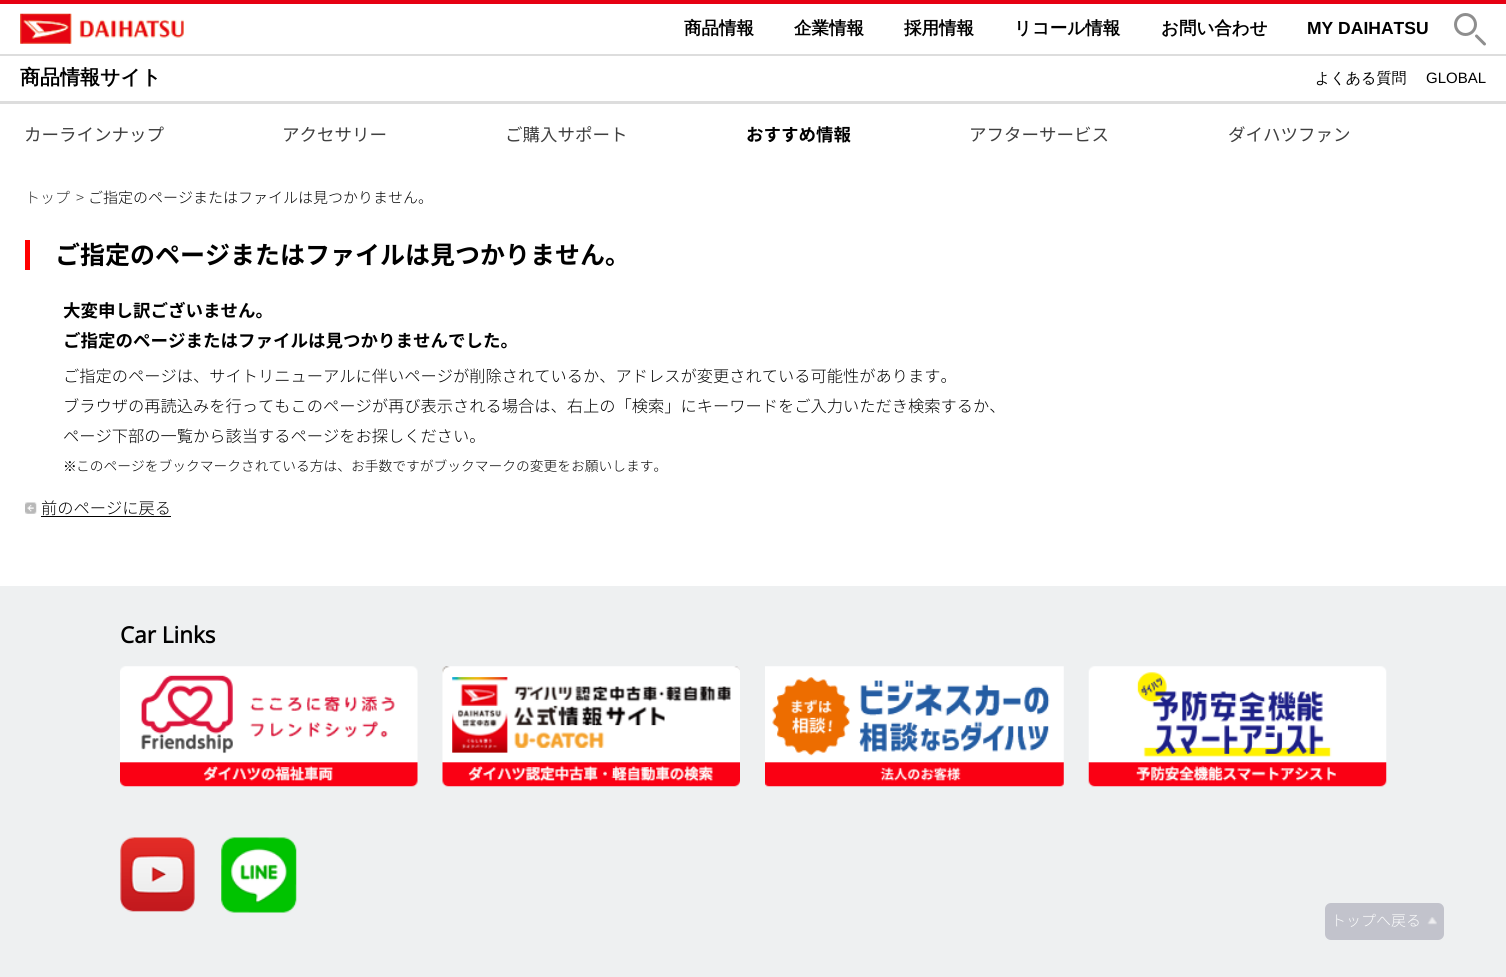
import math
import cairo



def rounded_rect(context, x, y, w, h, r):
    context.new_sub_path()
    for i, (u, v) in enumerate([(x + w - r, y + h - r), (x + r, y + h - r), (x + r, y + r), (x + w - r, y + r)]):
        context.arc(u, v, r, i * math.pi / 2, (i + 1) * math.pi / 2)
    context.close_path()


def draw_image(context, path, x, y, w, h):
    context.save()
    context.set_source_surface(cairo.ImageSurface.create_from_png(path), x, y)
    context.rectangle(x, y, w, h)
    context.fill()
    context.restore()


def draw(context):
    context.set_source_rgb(1, 1, 1)
    context.paint()
    context.set_source_rgb(230 / 255, 0, 18 / 255)
    context.rectangle(0, 0, 1506, 4)
    context.fill()
    context.set_source_rgb(221 / 255, 221 / 255, 221 / 255)
    context.rectangle(0, 54, 1506, 2)
    context.fill()
    draw_image(context, "images/1.png", 20, 13, 164, 31)
    context.arc(1465.5, 24.5, 10, 0, 2 * math.pi)
    context.set_source_rgb(142 / 255, 142 / 255, 142 / 255)
    context.set_line_width(3)
    context.stroke()
    context.new_path()
    context.move_to(1476.5, 36)
    context.line_to(1484.5, 44)
    context.set_line_cap(cairo.LineCap.ROUND)
    context.stroke()
    context.set_source_rgb(221 / 255, 221 / 255, 221 / 255)
    context.rectangle(0, 101, 1506, 3)
    context.fill()
    context.set_source_rgb(1, 0, 0)
    context.rectangle(25, 240, 5, 30)
    context.fill()
    draw_image(context, "images/2.png", 25, 502, 12, 12)
    context.set_source_rgb(0, 0, 0)
    context.rectangle(41, 516, 130, 1)
    context.fill()
    context.set_source_rgb(238 / 255, 240 / 255, 241 / 255)
    context.rectangle(0, 586, 1506, 391)
    context.fill()
    draw_image(context, "images/3.png", 120, 666, 298, 121)
    draw_image(context, "images/4.png", 442, 666, 298, 121)
    draw_image(context, "images/5.png", 765, 666, 299, 121)
    draw_image(context, "images/6.png", 1088, 666, 299, 121)
    draw_image(context, "images/7.png", 120, 837, 75, 75)
    draw_image(context, "images/8.png", 221, 837, 76, 76)
    context.set_source_rgb(194 / 255, 195 / 255, 204 / 255)
    rounded_rect(context, 1325, 903, 119, 37, 6)
    context.fill()
    draw_image(context, "images/9.png", 1427, 917, 10, 8)
    context.select_font_face("WenQuanYi Zen Hei", cairo.FontSlant.NORMAL, cairo.FontWeight.BOLD)
    context.set_font_size(17.5)
    context.set_source_rgb(0, 0, 0)
    context.move_to(684, 34)
    context.show_text("商品情報")
    context.move_to(794, 34)
    context.show_text("企業情報")
    context.move_to(904, 34)
    context.show_text("採用情報")
    context.move_to(1014, 34)
    context.show_text("リコール情報")
    context.move_to(1161, 34)
    context.show_text("お問い合わせ")
    context.select_font_face("Liberation Sans", cairo.FontSlant.NORMAL, cairo.FontWeight.BOLD)
    context.move_to(1307, 34)
    context.show_text("MY DAIHATSU")
    context.select_font_face("WenQuanYi Zen Hei", cairo.FontSlant.NORMAL, cairo.FontWeight.BOLD)
    context.set_font_size(20)
    context.move_to(20, 84)
    context.show_text("商品情報サイト")
    context.select_font_face("WenQuanYi Zen Hei Medium")
    context.set_font_size(15)
    context.move_to(1315, 83)
    context.show_text("よくある質問")
    context.select_font_face("Liberation Sans")
    context.move_to(1426, 83)
    context.show_text("GLOBAL")
    context.select_font_face("Noto Sans JP")
    context.set_font_size(17.5)
    context.set_source_rgb(64 / 255, 64 / 255, 64 / 255)
    context.move_to(24, 141)
    context.show_text("カーラインナップ")
    context.move_to(282, 141)
    context.show_text("アクセサリー")
    context.move_to(505, 141)
    context.show_text("ご購入サポート")
    context.select_font_face("Noto Sans JP", cairo.FontSlant.NORMAL, cairo.FontWeight.BOLD)
    context.set_source_rgb(0, 0, 0)
    context.move_to(746, 141)
    context.show_text("おすすめ情報")
    context.select_font_face("Noto Sans JP")
    context.set_source_rgb(64 / 255, 64 / 255, 64 / 255)
    context.move_to(969, 141)
    context.show_text("アフターサービス")
    context.move_to(1228, 141)
    context.show_text("ダイハツファン")
    context.select_font_face("Noto Sans JP Light")
    context.set_font_size(15)
    context.set_source_rgb(51 / 255, 51 / 255, 51 / 255)
    context.move_to(25, 203)
    context.show_text("トップ")
    context.move_to(76, 203)
    context.show_text(">")
    context.set_source_rgb(0, 0, 0)
    context.move_to(88, 203)
    context.show_text("ご指定のページまたはファイルは見つかりません。")
    context.select_font_face("Noto Sans JP", cairo.FontSlant.NORMAL, cairo.FontWeight.BOLD)
    context.set_font_size(25)
    context.move_to(55, 264)
    context.show_text("ご指定のページまたはファイルは見つかりません。")
    context.set_font_size(17.5)
    context.move_to(63, 317)
    context.show_text("大変申し訳ございません。")
    context.move_to(63, 347)
    context.show_text("ご指定のページまたはファイルは見つかりませんでした。")
    context.select_font_face("Noto Sans JP Light")
    context.set_font_size(16.25)
    context.move_to(63, 382)
    context.show_text("ご指定のページは、サイトリニューアルに伴いページが削除されているか、アドレスが変更されている可能性があります。")
    context.move_to(63, 412)
    context.show_text("ブラウザの再読込みを行ってもこのページが再び表示される場合は、右上の「検索」にキーワードをご入力いただき検索するか、")
    context.move_to(63, 442)
    context.show_text("ページ下部の一覧から該当するページをお探しください。")
    context.select_font_face("WenQuanYi Zen Hei Medium")
    context.set_font_size(13.75)
    context.move_to(63, 471)
    context.show_text("※")
    context.select_font_face("Noto Sans JP Light")
    context.move_to(76, 471)
    context.show_text("このページをブックマークされている方は、お手数ですがブックマークの変更をお願いします。")
    context.set_font_size(16.25)
    context.move_to(41, 514)
    context.show_text("前のページに戻る")
    context.select_font_face("Open Sans", cairo.FontSlant.NORMAL, cairo.FontWeight.BOLD)
    context.set_font_size(22.5)
    context.move_to(120, 643)
    context.show_text("Car Links")
    context.select_font_face("Noto Sans JP Light")
    context.set_font_size(15)
    context.set_source_rgb(250 / 255, 251 / 255, 251 / 255)
    context.move_to(1331, 926)
    context.show_text("トップへ戻る")


surface = cairo.ImageSurface(cairo.Format.RGB24, 1506, 977)
context = cairo.Context(surface)
options = cairo.FontOptions()
options.set_hint_metrics(cairo.HintMetrics.OFF)
options.set_hint_style(cairo.HintStyle.NONE)
context.set_font_options(options)
context.set_miter_limit(4)
draw(context)
surface.write_to_png("out.png")
